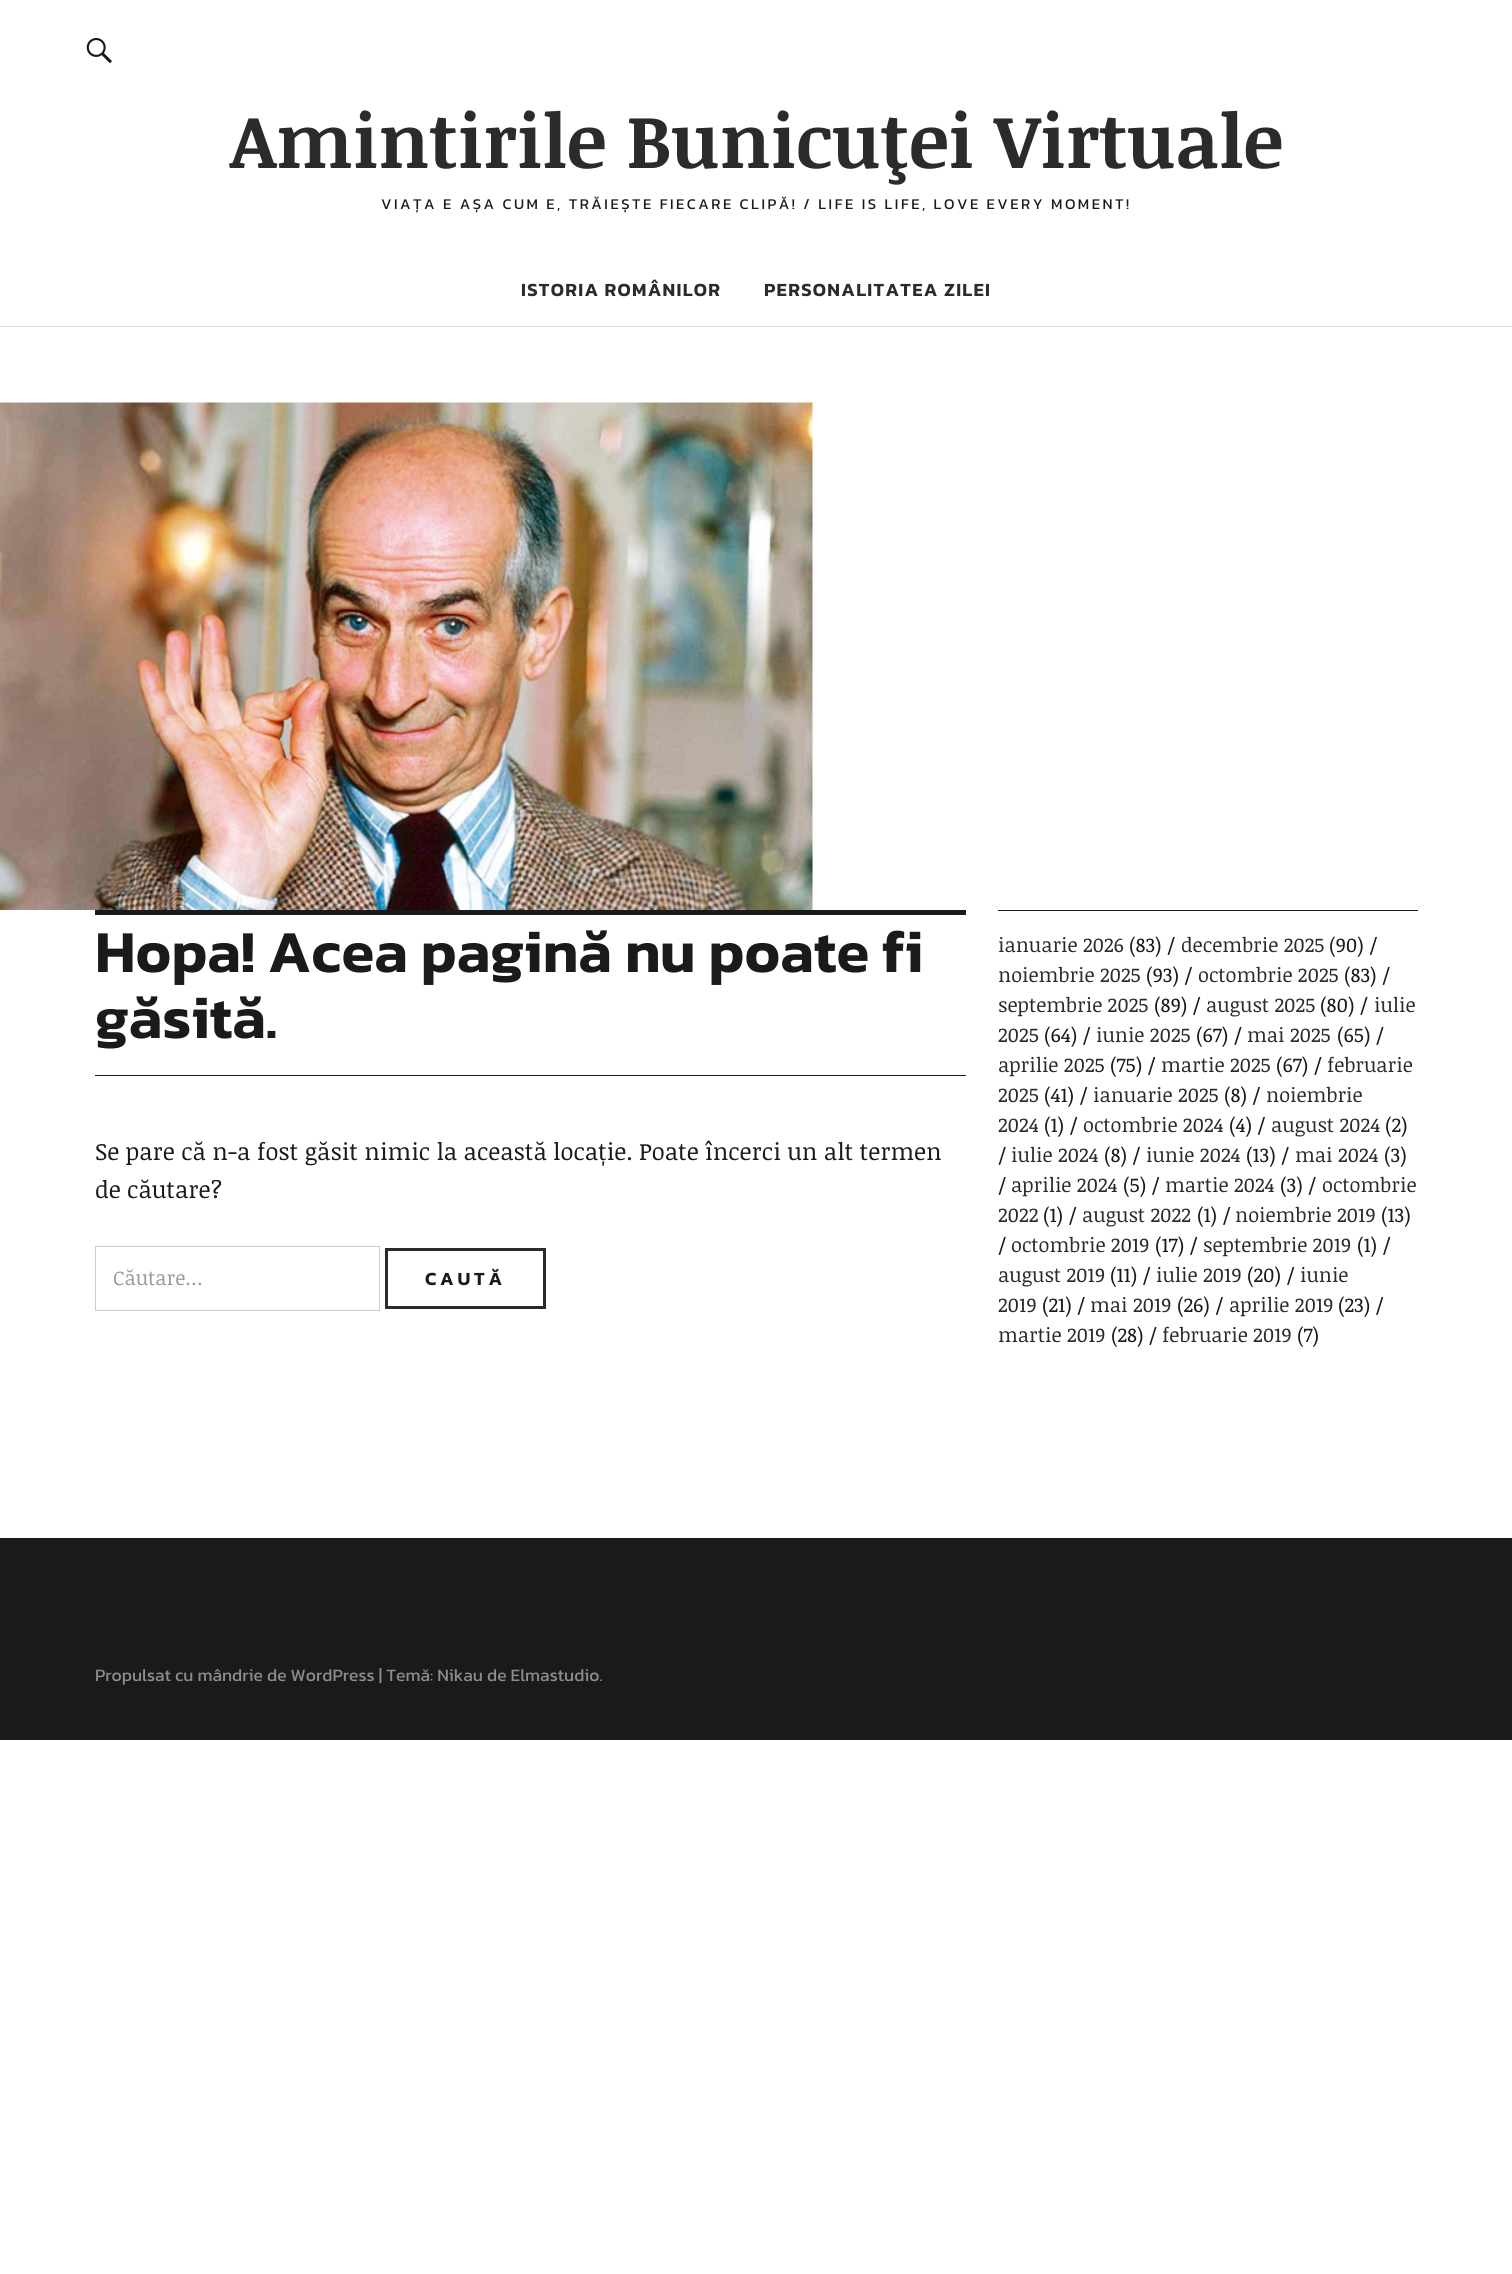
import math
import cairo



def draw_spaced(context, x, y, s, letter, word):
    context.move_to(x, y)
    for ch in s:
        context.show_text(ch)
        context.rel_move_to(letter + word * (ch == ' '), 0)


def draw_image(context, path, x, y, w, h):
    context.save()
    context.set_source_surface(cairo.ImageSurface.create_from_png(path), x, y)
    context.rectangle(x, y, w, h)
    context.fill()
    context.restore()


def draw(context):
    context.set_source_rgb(1, 1, 1)
    context.paint()
    context.set_source_rgb(221 / 255, 221 / 255, 221 / 255)
    context.rectangle(0, 326, 1512, 1)
    context.fill()
    draw_image(context, "images/1.png", 86, 38, 26, 26)
    draw_image(context, "images/2.png", 0, 402, 813, 508)
    context.set_source_rgb(26 / 255, 26 / 255, 26 / 255)
    context.rectangle(95, 910, 871, 5)
    context.fill()
    context.rectangle(95, 1075, 871, 1)
    context.fill()
    context.rectangle(95.5, 1246.5, 284, 64)
    context.set_source_rgb(204 / 255, 204 / 255, 204 / 255)
    context.set_line_width(1)
    context.stroke()
    context.rectangle(386.5, 1249.5, 158, 58)
    context.set_source_rgb(43 / 255, 43 / 255, 43 / 255)
    context.set_line_width(3)
    context.stroke()
    context.set_source_rgb(26 / 255, 26 / 255, 26 / 255)
    context.rectangle(998, 910, 420, 1)
    context.fill()
    context.rectangle(0, 1538, 1512, 202)
    context.fill()
    context.select_font_face("Noticia Text", cairo.FontSlant.NORMAL, cairo.FontWeight.BOLD)
    context.set_font_size(75)
    context.set_source_rgb(43 / 255, 43 / 255, 43 / 255)
    context.move_to(230, 168)
    context.show_text("Amintirile Bunicuţei Virtuale")
    context.select_font_face("Kanit")
    context.set_font_size(15)
    context.set_source_rgb(26 / 255, 26 / 255, 26 / 255)
    draw_spaced(context, 381, 209, "VIAȚA E AȘA CUM E, TRĂIEȘTE FIECARE CLIPĂ! / LIFE IS LIFE, LOVE EVERY MOMENT!", 2.5, 0)
    context.select_font_face("Kanit SemiBold")
    context.set_font_size(18.75)
    context.set_source_rgb(43 / 255, 43 / 255, 43 / 255)
    draw_spaced(context, 521, 296, "ISTORIA ROMÂNILOR", 1.25, 0)
    draw_spaced(context, 764, 296, "PERSONALITATEA ZILEI", 1.25, 0)
    context.set_font_size(60)
    context.set_source_rgb(26 / 255, 26 / 255, 26 / 255)
    context.move_to(95, 972)
    context.show_text("Hopa! Acea pagină nu poate fi")
    context.move_to(95, 1038)
    context.show_text("găsită.")
    context.select_font_face("Noticia Text")
    context.set_font_size(23.75)
    context.move_to(95, 1160)
    context.show_text("Se pare că n-a fost găsit nimic la această locație. Poate încerci un alt termen")
    context.move_to(95, 1198)
    context.show_text("de căutare?")
    context.set_font_size(20)
    context.set_source_rgb(153 / 255, 153 / 255, 153 / 255)
    context.move_to(113, 1285)
    context.show_text("Căutare…")
    context.select_font_face("Kanit SemiBold")
    context.set_font_size(18.75)
    context.set_source_rgb(26 / 255, 26 / 255, 26 / 255)
    draw_spaced(context, 425, 1285, "CAUTĂ", 3.75, 0)
    context.select_font_face("Noticia Text")
    context.set_font_size(20)
    context.set_source_rgb(43 / 255, 43 / 255, 43 / 255)
    context.move_to(998, 952)
    context.show_text("ianuarie 2026")
    context.set_source_rgb(26 / 255, 26 / 255, 26 / 255)
    context.move_to(1129, 952)
    context.show_text("(83) /")
    context.set_source_rgb(43 / 255, 43 / 255, 43 / 255)
    context.move_to(1181, 952)
    context.show_text("decembrie 2025")
    context.set_source_rgb(26 / 255, 26 / 255, 26 / 255)
    context.move_to(1329, 952)
    context.show_text("(90) /")
    context.set_source_rgb(43 / 255, 43 / 255, 43 / 255)
    context.move_to(998, 982)
    context.show_text("noiembrie 2025")
    context.set_source_rgb(26 / 255, 26 / 255, 26 / 255)
    context.move_to(1146, 982)
    context.show_text("(93) /")
    context.set_source_rgb(43 / 255, 43 / 255, 43 / 255)
    context.move_to(1198, 982)
    context.show_text("octombrie 2025")
    context.set_source_rgb(26 / 255, 26 / 255, 26 / 255)
    context.move_to(1344, 982)
    context.show_text("(83) /")
    context.set_source_rgb(43 / 255, 43 / 255, 43 / 255)
    context.move_to(998, 1012)
    context.show_text("septembrie 2025")
    context.set_source_rgb(26 / 255, 26 / 255, 26 / 255)
    context.move_to(1154, 1012)
    context.show_text("(89) /")
    context.set_source_rgb(43 / 255, 43 / 255, 43 / 255)
    context.move_to(1206, 1012)
    context.show_text("august 2025")
    context.set_source_rgb(26 / 255, 26 / 255, 26 / 255)
    context.move_to(1320, 1012)
    context.show_text("(80) /")
    context.set_source_rgb(43 / 255, 43 / 255, 43 / 255)
    context.move_to(1374, 1012)
    context.show_text("iulie")
    context.move_to(998, 1042)
    context.show_text("2025")
    context.set_source_rgb(26 / 255, 26 / 255, 26 / 255)
    context.move_to(1044, 1042)
    context.show_text("(64) /")
    context.set_source_rgb(43 / 255, 43 / 255, 43 / 255)
    context.move_to(1096, 1042)
    context.show_text("iunie 2025")
    context.set_source_rgb(26 / 255, 26 / 255, 26 / 255)
    context.move_to(1196, 1042)
    context.show_text("(67) /")
    context.set_source_rgb(43 / 255, 43 / 255, 43 / 255)
    context.move_to(1247, 1042)
    context.show_text("mai 2025")
    context.set_source_rgb(26 / 255, 26 / 255, 26 / 255)
    context.move_to(1337, 1042)
    context.show_text("(65) /")
    context.set_source_rgb(43 / 255, 43 / 255, 43 / 255)
    context.move_to(998, 1072)
    context.show_text("aprilie 2025")
    context.set_source_rgb(26 / 255, 26 / 255, 26 / 255)
    context.move_to(1110, 1072)
    context.show_text("(75) /")
    context.set_source_rgb(43 / 255, 43 / 255, 43 / 255)
    context.move_to(1161, 1072)
    context.show_text("martie 2025")
    context.set_source_rgb(26 / 255, 26 / 255, 26 / 255)
    context.move_to(1276, 1072)
    context.show_text("(67) /")
    context.set_source_rgb(43 / 255, 43 / 255, 43 / 255)
    context.move_to(1327, 1072)
    context.show_text("februarie")
    context.move_to(998, 1102)
    context.show_text("2025")
    context.set_source_rgb(26 / 255, 26 / 255, 26 / 255)
    context.move_to(1044, 1102)
    context.show_text("(41) /")
    context.set_source_rgb(43 / 255, 43 / 255, 43 / 255)
    context.move_to(1093, 1102)
    context.show_text("ianuarie 2025")
    context.set_source_rgb(26 / 255, 26 / 255, 26 / 255)
    context.move_to(1224, 1102)
    context.show_text("(8) /")
    context.set_source_rgb(43 / 255, 43 / 255, 43 / 255)
    context.move_to(1266, 1102)
    context.show_text("noiembrie")
    context.move_to(998, 1132)
    context.show_text("2024")
    context.set_source_rgb(26 / 255, 26 / 255, 26 / 255)
    context.move_to(1044, 1132)
    context.show_text("(1) /")
    context.set_source_rgb(43 / 255, 43 / 255, 43 / 255)
    context.move_to(1083, 1132)
    context.show_text("octombrie 2024")
    context.set_source_rgb(26 / 255, 26 / 255, 26 / 255)
    context.move_to(1229, 1132)
    context.show_text("(4) /")
    context.set_source_rgb(43 / 255, 43 / 255, 43 / 255)
    context.move_to(1271, 1132)
    context.show_text("august 2024")
    context.set_source_rgb(26 / 255, 26 / 255, 26 / 255)
    context.move_to(1385, 1132)
    context.show_text("(2)")
    context.move_to(998, 1162)
    context.show_text("/")
    context.set_source_rgb(43 / 255, 43 / 255, 43 / 255)
    context.move_to(1011, 1162)
    context.show_text("iulie 2024")
    context.set_source_rgb(26 / 255, 26 / 255, 26 / 255)
    context.move_to(1104, 1162)
    context.show_text("(8) /")
    context.set_source_rgb(43 / 255, 43 / 255, 43 / 255)
    context.move_to(1146, 1162)
    context.show_text("iunie 2024")
    context.set_source_rgb(26 / 255, 26 / 255, 26 / 255)
    context.move_to(1246, 1162)
    context.show_text("(13) /")
    context.set_source_rgb(43 / 255, 43 / 255, 43 / 255)
    context.move_to(1295, 1162)
    context.show_text("mai 2024")
    context.set_source_rgb(26 / 255, 26 / 255, 26 / 255)
    context.move_to(1384, 1162)
    context.show_text("(3)")
    context.move_to(998, 1192)
    context.show_text("/")
    context.set_source_rgb(43 / 255, 43 / 255, 43 / 255)
    context.move_to(1011, 1192)
    context.show_text("aprilie 2024")
    context.set_source_rgb(26 / 255, 26 / 255, 26 / 255)
    context.move_to(1123, 1192)
    context.show_text("(5) /")
    context.set_source_rgb(43 / 255, 43 / 255, 43 / 255)
    context.move_to(1165, 1192)
    context.show_text("martie 2024")
    context.set_source_rgb(26 / 255, 26 / 255, 26 / 255)
    context.move_to(1280, 1192)
    context.show_text("(3) /")
    context.set_source_rgb(43 / 255, 43 / 255, 43 / 255)
    context.move_to(1322, 1192)
    context.show_text("octombrie")
    context.move_to(998, 1222)
    context.show_text("2022")
    context.set_source_rgb(26 / 255, 26 / 255, 26 / 255)
    context.move_to(1043, 1222)
    context.show_text("(1) /")
    context.set_source_rgb(43 / 255, 43 / 255, 43 / 255)
    context.move_to(1082, 1222)
    context.show_text("august 2022")
    context.set_source_rgb(26 / 255, 26 / 255, 26 / 255)
    context.move_to(1197, 1222)
    context.show_text("(1) /")
    context.set_source_rgb(43 / 255, 43 / 255, 43 / 255)
    context.move_to(1235, 1222)
    context.show_text("noiembrie 2019")
    context.set_source_rgb(26 / 255, 26 / 255, 26 / 255)
    context.move_to(1381, 1222)
    context.show_text("(13)")
    context.move_to(998, 1252)
    context.show_text("/")
    context.set_source_rgb(43 / 255, 43 / 255, 43 / 255)
    context.move_to(1011, 1252)
    context.show_text("octombrie 2019")
    context.set_source_rgb(26 / 255, 26 / 255, 26 / 255)
    context.move_to(1155, 1252)
    context.show_text("(17) /")
    context.set_source_rgb(43 / 255, 43 / 255, 43 / 255)
    context.move_to(1203, 1252)
    context.show_text("septembrie 2019")
    context.set_source_rgb(26 / 255, 26 / 255, 26 / 255)
    context.move_to(1357, 1252)
    context.show_text("(1) /")
    context.set_source_rgb(43 / 255, 43 / 255, 43 / 255)
    context.move_to(998, 1282)
    context.show_text("august 2019")
    context.set_source_rgb(26 / 255, 26 / 255, 26 / 255)
    context.move_to(1110, 1282)
    context.show_text("(11) /")
    context.set_source_rgb(43 / 255, 43 / 255, 43 / 255)
    context.move_to(1156, 1282)
    context.show_text("iulie 2019")
    context.set_source_rgb(26 / 255, 26 / 255, 26 / 255)
    context.move_to(1247, 1282)
    context.show_text("(20) /")
    context.set_source_rgb(43 / 255, 43 / 255, 43 / 255)
    context.move_to(1300, 1282)
    context.show_text("iunie")
    context.move_to(998, 1312)
    context.show_text("2019")
    context.set_source_rgb(26 / 255, 26 / 255, 26 / 255)
    context.move_to(1042, 1312)
    context.show_text("(21) /")
    context.set_source_rgb(43 / 255, 43 / 255, 43 / 255)
    context.move_to(1090, 1312)
    context.show_text("mai 2019")
    context.set_source_rgb(26 / 255, 26 / 255, 26 / 255)
    context.move_to(1177, 1312)
    context.show_text("(26) /")
    context.set_source_rgb(43 / 255, 43 / 255, 43 / 255)
    context.move_to(1229, 1312)
    context.show_text("aprilie 2019")
    context.set_source_rgb(26 / 255, 26 / 255, 26 / 255)
    context.move_to(1338, 1312)
    context.show_text("(23) /")
    context.set_source_rgb(43 / 255, 43 / 255, 43 / 255)
    context.move_to(998, 1342)
    context.show_text("martie 2019")
    context.set_source_rgb(26 / 255, 26 / 255, 26 / 255)
    context.move_to(1111, 1342)
    context.show_text("(28) /")
    context.set_source_rgb(43 / 255, 43 / 255, 43 / 255)
    context.move_to(1162, 1342)
    context.show_text("februarie 2019")
    context.set_source_rgb(26 / 255, 26 / 255, 26 / 255)
    context.move_to(1297, 1342)
    context.show_text("(7)")
    context.select_font_face("Kanit")
    context.set_font_size(17.5)
    context.set_source_rgb(141 / 255, 141 / 255, 141 / 255)
    context.move_to(95, 1681)
    context.show_text("Propulsat cu mândrie de WordPress | Temă: Nikau de Elmastudio.")


surface = cairo.ImageSurface(cairo.Format.RGB24, 1512, 2274)
context = cairo.Context(surface)
options = cairo.FontOptions()
options.set_hint_metrics(cairo.HintMetrics.OFF)
options.set_hint_style(cairo.HintStyle.NONE)
context.set_font_options(options)
context.set_miter_limit(4)
draw(context)
surface.write_to_png("out.png")
